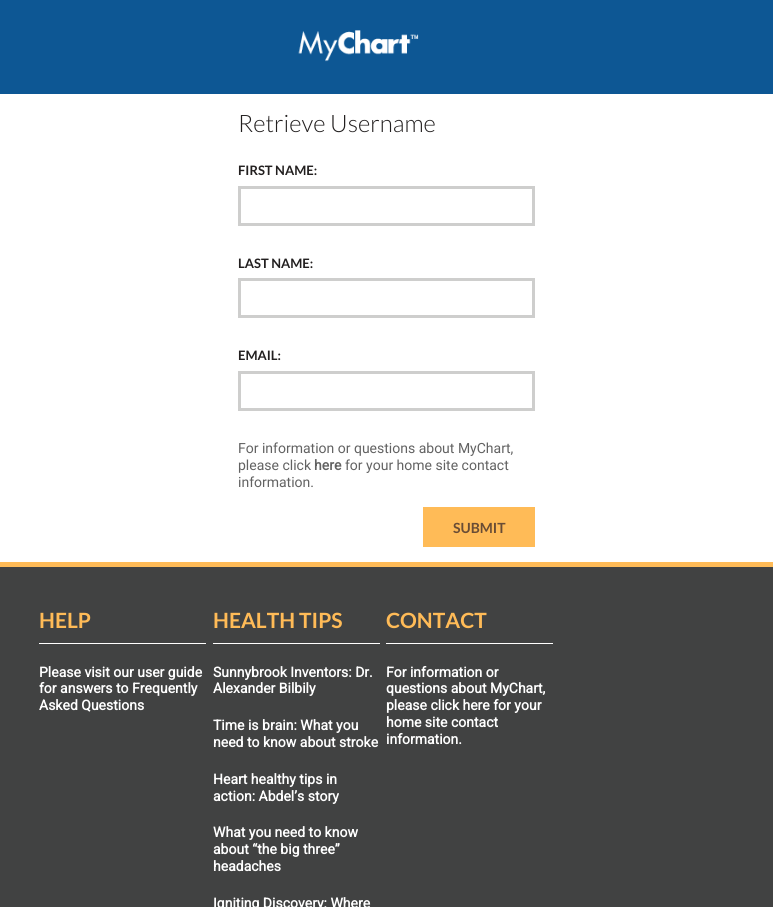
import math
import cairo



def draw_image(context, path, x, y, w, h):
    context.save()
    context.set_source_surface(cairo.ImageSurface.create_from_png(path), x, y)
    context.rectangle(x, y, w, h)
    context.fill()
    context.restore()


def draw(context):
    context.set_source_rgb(1, 1, 1)
    context.paint()
    context.set_source_rgb(13 / 255, 87 / 255, 148 / 255)
    context.rectangle(0, 0, 773, 94)
    context.fill()
    draw_image(context, "images/1.png", 298, 30, 121, 32)
    context.rectangle(239.5, 187.5, 294, 37)
    context.set_source_rgb(206 / 255, 206 / 255, 205 / 255)
    context.set_line_width(3)
    context.stroke()
    context.rectangle(239.5, 279.5, 294, 37)
    context.stroke()
    context.rectangle(239.5, 372.5, 294, 37)
    context.stroke()
    context.set_source_rgb(1, 187 / 255, 87 / 255)
    context.rectangle(423, 507, 112, 40)
    context.fill()
    context.set_source_rgb(65 / 255, 66 / 255, 66 / 255)
    context.rectangle(0, 567, 773, 340)
    context.fill()
    context.set_source_rgb(1, 187 / 255, 87 / 255)
    context.rectangle(0, 562, 773, 5)
    context.fill()
    context.set_source_rgb(1, 1, 1)
    context.rectangle(39, 643, 167, 1)
    context.fill()
    context.rectangle(213, 643, 167, 1)
    context.fill()
    context.rectangle(386, 643, 167, 1)
    context.fill()
    context.select_font_face("Lato Light")
    context.set_font_size(24)
    context.set_source_rgb(34 / 255, 31 / 255, 31 / 255)
    context.move_to(238, 132)
    context.show_text("Retrieve Username")
    context.select_font_face("Lato", cairo.FontSlant.NORMAL, cairo.FontWeight.BOLD)
    context.set_font_size(13)
    context.move_to(238, 175)
    context.show_text("FIRST NAME:")
    context.move_to(238, 268)
    context.show_text("LAST NAME:")
    context.move_to(238, 360)
    context.show_text("EMAIL:")
    context.select_font_face("Roboto")
    context.set_font_size(14)
    context.set_source_rgb(98 / 255, 98 / 255, 98 / 255)
    context.move_to(238, 453)
    context.show_text("For information or questions about MyChart,")
    context.move_to(238, 470)
    context.show_text("please click")
    context.select_font_face("Roboto", cairo.FontSlant.NORMAL, cairo.FontWeight.BOLD)
    context.move_to(314, 470)
    context.show_text("here")
    context.select_font_face("Roboto")
    context.move_to(345, 470)
    context.show_text("for your home site contact")
    context.move_to(238, 487)
    context.show_text("information.")
    context.select_font_face("Lato", cairo.FontSlant.NORMAL, cairo.FontWeight.BOLD)
    context.set_source_rgb(105 / 255, 76 / 255, 53 / 255)
    context.move_to(453, 533)
    context.show_text("SUBMIT")
    context.set_font_size(21)
    context.set_source_rgb(1, 187 / 255, 87 / 255)
    context.move_to(39, 628)
    context.show_text("HELP")
    context.select_font_face("Roboto", cairo.FontSlant.NORMAL, cairo.FontWeight.BOLD)
    context.set_font_size(14)
    context.set_source_rgb(1, 1, 1)
    context.move_to(39, 677)
    context.show_text("Please visit our user guide")
    context.move_to(39, 693)
    context.show_text("for answers to Frequently")
    context.move_to(39, 710)
    context.show_text("Asked Questions")
    context.select_font_face("Lato", cairo.FontSlant.NORMAL, cairo.FontWeight.BOLD)
    context.set_font_size(21)
    context.set_source_rgb(1, 187 / 255, 87 / 255)
    context.move_to(213, 628)
    context.show_text("HEALTH TIPS")
    context.select_font_face("Roboto", cairo.FontSlant.NORMAL, cairo.FontWeight.BOLD)
    context.set_font_size(14)
    context.set_source_rgb(1, 1, 1)
    context.move_to(213, 677)
    context.show_text("Sunnybrook Inventors: Dr.")
    context.move_to(213, 693)
    context.show_text("Alexander Bilbily")
    context.move_to(213, 730)
    context.show_text("Time is brain: What you")
    context.move_to(213, 747)
    context.show_text("need to know about stroke")
    context.move_to(213, 784)
    context.show_text("Heart healthy tips in")
    context.move_to(213, 801)
    context.show_text("action: Abdel’s story")
    context.move_to(213, 837)
    context.show_text("What you need to know")
    context.move_to(213, 854)
    context.show_text("about “the big three”")
    context.move_to(213, 871)
    context.show_text("headaches")
    context.move_to(213, 908)
    context.show_text("Igniting Discovery: Where")
    context.select_font_face("Lato", cairo.FontSlant.NORMAL, cairo.FontWeight.BOLD)
    context.set_font_size(21)
    context.set_source_rgb(1, 187 / 255, 87 / 255)
    context.move_to(386, 628)
    context.show_text("CONTACT")
    context.select_font_face("Roboto", cairo.FontSlant.NORMAL, cairo.FontWeight.BOLD)
    context.set_font_size(14)
    context.set_source_rgb(1, 1, 1)
    context.move_to(386, 677)
    context.show_text("For information or")
    context.move_to(386, 693)
    context.show_text("questions about MyChart,")
    context.move_to(386, 710)
    context.show_text("please click here for your")
    context.move_to(386, 727)
    context.show_text("home site contact")
    context.move_to(386, 744)
    context.show_text("information.")


surface = cairo.ImageSurface(cairo.Format.RGB24, 773, 907)
context = cairo.Context(surface)
options = cairo.FontOptions()
options.set_hint_metrics(cairo.HintMetrics.OFF)
options.set_hint_style(cairo.HintStyle.NONE)
context.set_font_options(options)
context.set_miter_limit(4)
draw(context)
surface.write_to_png("out.png")
